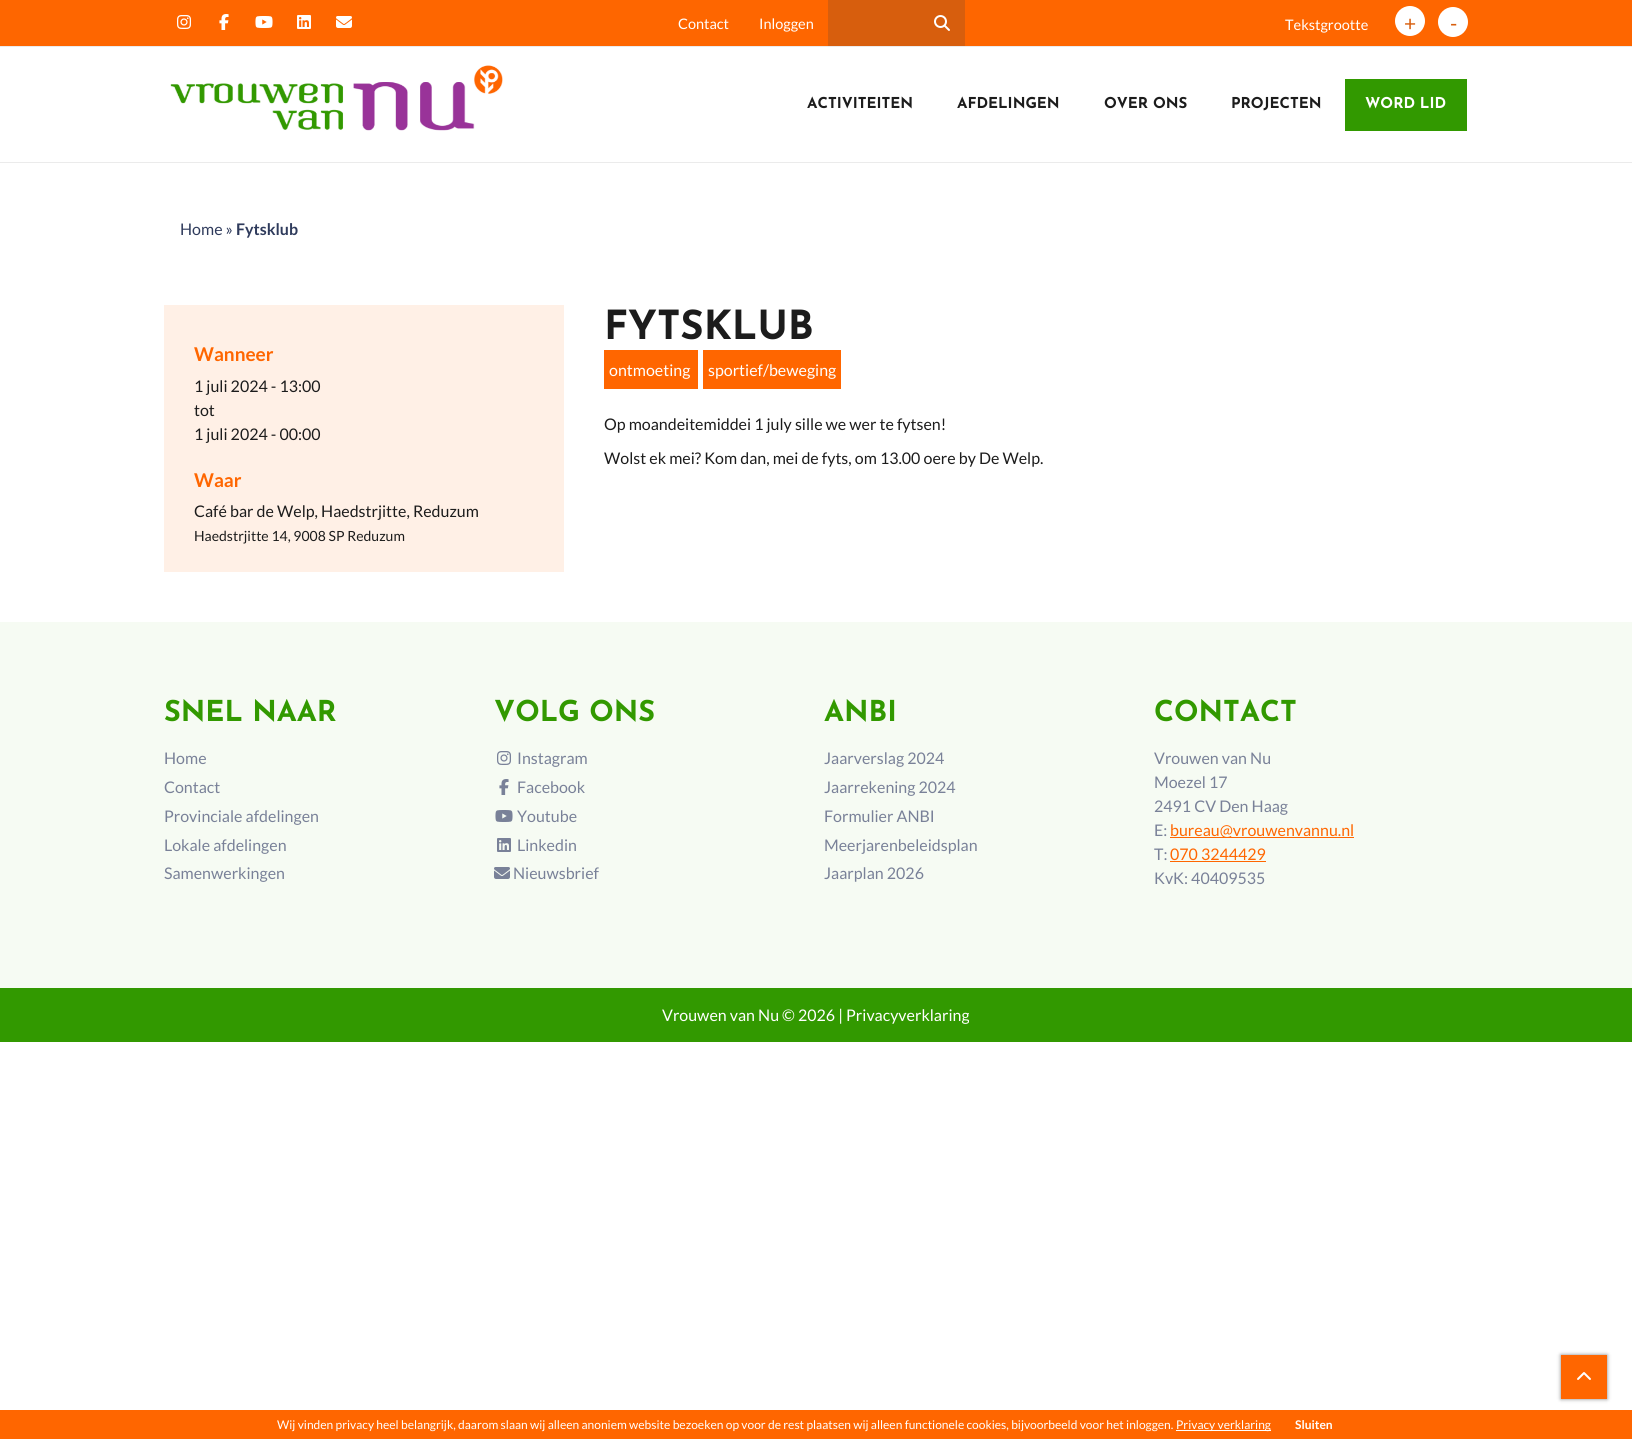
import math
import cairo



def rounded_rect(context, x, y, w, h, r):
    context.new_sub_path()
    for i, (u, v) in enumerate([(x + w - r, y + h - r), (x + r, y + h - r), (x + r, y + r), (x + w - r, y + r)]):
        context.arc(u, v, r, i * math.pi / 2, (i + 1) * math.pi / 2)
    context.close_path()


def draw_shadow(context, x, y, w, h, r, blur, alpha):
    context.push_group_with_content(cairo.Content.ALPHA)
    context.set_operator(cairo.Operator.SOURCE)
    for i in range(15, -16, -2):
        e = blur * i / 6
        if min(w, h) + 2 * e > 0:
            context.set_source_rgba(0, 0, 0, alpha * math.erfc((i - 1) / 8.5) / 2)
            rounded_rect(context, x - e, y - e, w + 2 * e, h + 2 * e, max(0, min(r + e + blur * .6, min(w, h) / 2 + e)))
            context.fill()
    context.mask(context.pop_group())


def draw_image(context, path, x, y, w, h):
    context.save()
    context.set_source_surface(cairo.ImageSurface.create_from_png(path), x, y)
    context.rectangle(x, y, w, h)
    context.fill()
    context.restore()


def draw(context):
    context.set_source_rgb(1, 1, 1)
    context.paint()
    context.set_source_rgb(254 / 255, 102 / 255, 0)
    context.rectangle(0, 0, 1632, 46)
    context.fill()
    draw_image(context, "images/1.png", 177, 15, 14, 14)
    draw_image(context, "images/2.png", 219, 14, 10, 16)
    draw_image(context, "images/3.png", 255, 16, 18, 12)
    draw_image(context, "images/4.png", 297, 15, 14, 14)
    draw_image(context, "images/5.png", 336, 16, 16, 12)
    context.set_source_rgb(215 / 255, 94 / 255, 13 / 255)
    context.rectangle(828, 0, 137, 46)
    context.fill()
    draw_image(context, "images/6.png", 934, 15, 16, 16)
    context.set_source_rgb(1, 1, 1)
    context.arc(1410, 21, 15, 0, 2 * math.pi)
    context.fill()
    context.arc(1453, 22, 15, 0, 2 * math.pi)
    context.fill()
    context.set_source_rgb(235 / 255, 235 / 255, 235 / 255)
    context.rectangle(0, 46, 1632, 1)
    context.fill()
    context.rectangle(0, 162, 1632, 1)
    context.fill()
    draw_image(context, "images/7.png", 170, 65, 333, 66)
    context.set_source_rgb(50 / 255, 153 / 255, 0)
    context.rectangle(1345, 79, 122, 52)
    context.fill()
    context.set_source_rgb(1, 240 / 255, 230 / 255)
    context.rectangle(164, 305, 400, 267)
    context.fill()
    context.set_source_rgb(1, 102 / 255, 0)
    context.rectangle(604, 350, 94, 39)
    context.fill()
    context.rectangle(703, 350, 138, 39)
    context.fill()
    context.set_source_rgb(246 / 255, 251 / 255, 243 / 255)
    context.rectangle(0, 622, 1632, 366)
    context.fill()
    draw_image(context, "images/8.png", 497, 751, 14, 14)
    draw_image(context, "images/9.png", 499, 779, 10, 16)
    draw_image(context, "images/10.png", 495, 810, 18, 12)
    draw_image(context, "images/11.png", 497, 838, 14, 14)
    draw_image(context, "images/12.png", 494, 867, 16, 12)
    context.set_source_rgb(1, 102 / 255, 0)
    context.rectangle(1170, 837, 184, 1)
    context.fill()
    context.rectangle(1170, 861, 96, 1)
    context.fill()
    context.set_source_rgb(50 / 255, 153 / 255, 0)
    context.rectangle(0, 988, 1632, 54)
    context.fill()
    context.set_source_rgb(0, 0, 0)
    draw_shadow(context, 1561, 1355, 46, 44, 0, 2, 0.5)
    context.set_source_rgb(1, 102 / 255, 0)
    context.rectangle(1561, 1355, 46, 44)
    context.fill()
    draw_image(context, "images/13.png", 1577, 1372, 14, 8)
    context.rectangle(0, 1410, 1632, 29)
    context.fill()
    context.set_source_rgb(1, 1, 1)
    context.rectangle(1176, 1430, 95, 1)
    context.fill()
    context.select_font_face("Lato")
    context.set_font_size(14.5)
    context.move_to(678, 29)
    context.show_text("Contact")
    context.move_to(759, 29)
    context.show_text("Inloggen")
    context.move_to(1285, 30)
    context.show_text("Tekstgrootte")
    context.set_font_size(21)
    context.set_source_rgb(215 / 255, 94 / 255, 13 / 255)
    context.move_to(1404, 31)
    context.show_text("+")
    context.move_to(1450, 31)
    context.show_text("-")
    context.select_font_face("Josefin Sans", cairo.FontSlant.NORMAL, cairo.FontWeight.BOLD)
    context.set_font_size(15)
    context.set_source_rgb(28 / 255, 28 / 255, 28 / 255)
    context.move_to(807, 108)
    context.show_text("ACTIVITEITEN")
    context.move_to(957, 108)
    context.show_text("AFDELINGEN")
    context.move_to(1104, 108)
    context.show_text("OVER ONS")
    context.move_to(1231, 108)
    context.show_text("PROJECTEN")
    context.set_source_rgb(1, 1, 1)
    context.move_to(1365, 108)
    context.show_text("WORD LID")
    context.select_font_face("Lato")
    context.set_font_size(16)
    context.set_source_rgb(47 / 255, 59 / 255, 92 / 255)
    context.move_to(180, 235)
    context.show_text("Home »")
    context.select_font_face("Lato", cairo.FontSlant.NORMAL, cairo.FontWeight.BOLD)
    context.move_to(236, 235)
    context.show_text("Fytsklub")
    context.set_font_size(19)
    context.set_source_rgb(1, 102 / 255, 0)
    context.move_to(194, 361)
    context.show_text("Wanneer")
    context.select_font_face("Lato")
    context.set_font_size(16)
    context.set_source_rgb(28 / 255, 28 / 255, 28 / 255)
    context.move_to(194, 392)
    context.show_text("1 juli 2024 - 13:00")
    context.move_to(194, 416)
    context.show_text("tot")
    context.move_to(194, 440)
    context.show_text("1 juli 2024 - 00:00")
    context.select_font_face("Lato", cairo.FontSlant.NORMAL, cairo.FontWeight.BOLD)
    context.set_font_size(19)
    context.set_source_rgb(1, 102 / 255, 0)
    context.move_to(194, 487)
    context.show_text("Waar")
    context.select_font_face("Lato")
    context.set_font_size(16)
    context.set_source_rgb(28 / 255, 28 / 255, 28 / 255)
    context.move_to(194, 517)
    context.show_text("Café bar de Welp, Haedstrjitte, Reduzum")
    context.set_font_size(14)
    context.move_to(194, 541)
    context.show_text("Haedstrjitte 14, 9008 SP Reduzum")
    context.select_font_face("Josefin Sans", cairo.FontSlant.NORMAL, cairo.FontWeight.BOLD)
    context.set_font_size(40)
    context.move_to(604, 339)
    context.show_text("FYTSKLUB")
    context.select_font_face("Lato")
    context.set_font_size(16)
    context.set_source_rgb(1, 1, 1)
    context.move_to(609, 376)
    context.show_text("ontmoeting")
    context.move_to(708, 376)
    context.show_text("sportief/beweging")
    context.set_source_rgb(28 / 255, 28 / 255, 28 / 255)
    context.move_to(604, 430)
    context.show_text("Op moandeitemiddei 1 july sille we wer te fytsen!")
    context.move_to(604, 464)
    context.show_text("Wolst ek mei? Kom dan, mei de fyts, om 13.00 oere by De Welp.")
    context.select_font_face("Josefin Sans", cairo.FontSlant.NORMAL, cairo.FontWeight.BOLD)
    context.set_font_size(28.75)
    context.set_source_rgb(50 / 255, 153 / 255, 0)
    context.move_to(164, 721)
    context.show_text("SNEL NAAR")
    context.select_font_face("Lato")
    context.set_font_size(16)
    context.set_source_rgb(121 / 255, 129 / 255, 152 / 255)
    context.move_to(164, 764)
    context.show_text("Home")
    context.move_to(164, 793)
    context.show_text("Contact")
    context.move_to(164, 822)
    context.show_text("Provinciale afdelingen")
    context.move_to(164, 851)
    context.show_text("Lokale afdelingen")
    context.move_to(164, 879)
    context.show_text("Samenwerkingen")
    context.select_font_face("Josefin Sans", cairo.FontSlant.NORMAL, cairo.FontWeight.BOLD)
    context.set_font_size(28.75)
    context.set_source_rgb(50 / 255, 153 / 255, 0)
    context.move_to(494, 721)
    context.show_text("VOLG ONS")
    context.select_font_face("Lato")
    context.set_font_size(16)
    context.set_source_rgb(121 / 255, 129 / 255, 152 / 255)
    context.move_to(517, 764)
    context.show_text("Instagram")
    context.move_to(517, 793)
    context.show_text("Facebook")
    context.move_to(517, 822)
    context.show_text("Youtube")
    context.move_to(517, 851)
    context.show_text("Linkedin")
    context.move_to(513, 879)
    context.show_text("Nieuwsbrief")
    context.select_font_face("Josefin Sans", cairo.FontSlant.NORMAL, cairo.FontWeight.BOLD)
    context.set_font_size(28.75)
    context.set_source_rgb(50 / 255, 153 / 255, 0)
    context.move_to(824, 721)
    context.show_text("ANBI")
    context.select_font_face("Lato")
    context.set_font_size(16)
    context.set_source_rgb(121 / 255, 129 / 255, 152 / 255)
    context.move_to(824, 764)
    context.show_text("Jaarverslag 2024")
    context.move_to(824, 793)
    context.show_text("Jaarrekening 2024")
    context.move_to(824, 822)
    context.show_text("Formulier ANBI")
    context.move_to(824, 851)
    context.show_text("Meerjarenbeleidsplan")
    context.move_to(824, 879)
    context.show_text("Jaarplan 2026")
    context.select_font_face("Josefin Sans", cairo.FontSlant.NORMAL, cairo.FontWeight.BOLD)
    context.set_font_size(28.75)
    context.set_source_rgb(50 / 255, 153 / 255, 0)
    context.move_to(1154, 721)
    context.show_text("CONTACT")
    context.select_font_face("Lato")
    context.set_font_size(16)
    context.set_source_rgb(121 / 255, 129 / 255, 152 / 255)
    context.move_to(1154, 764)
    context.show_text("Vrouwen van Nu")
    context.move_to(1154, 788)
    context.show_text("Moezel 17")
    context.move_to(1154, 812)
    context.show_text("2491 CV Den Haag")
    context.move_to(1154, 836)
    context.show_text("E:")
    context.set_source_rgb(1, 102 / 255, 0)
    context.move_to(1170, 836)
    context.show_text("bureau@vrouwenvannu.nl")
    context.set_source_rgb(121 / 255, 129 / 255, 152 / 255)
    context.move_to(1154, 860)
    context.show_text("T:")
    context.set_source_rgb(1, 102 / 255, 0)
    context.move_to(1170, 860)
    context.show_text("070 3244429")
    context.set_source_rgb(121 / 255, 129 / 255, 152 / 255)
    context.move_to(1154, 884)
    context.show_text("KvK: 40409535")
    context.set_source_rgb(1, 1, 1)
    context.move_to(662, 1021)
    context.show_text("Vrouwen van Nu © 2026 | Privacyverklaring")
    context.set_font_size(12)
    context.move_to(277, 1429)
    context.show_text("Wij vinden privacy heel belangrijk, daarom slaan wij alleen anoniem website bezoeken op voor de rest plaatsen wij alleen functionele cookies, bijvoorbeeld voor het inloggen.")
    context.move_to(1176, 1429)
    context.show_text("Privacy verklaring")
    context.select_font_face("Lato", cairo.FontSlant.NORMAL, cairo.FontWeight.BOLD)
    context.move_to(1295, 1429)
    context.show_text("Sluiten")


surface = cairo.ImageSurface(cairo.Format.RGB24, 1632, 1439)
context = cairo.Context(surface)
options = cairo.FontOptions()
options.set_hint_metrics(cairo.HintMetrics.OFF)
options.set_hint_style(cairo.HintStyle.NONE)
context.set_font_options(options)
context.set_miter_limit(4)
draw(context)
surface.write_to_png("out.png")
